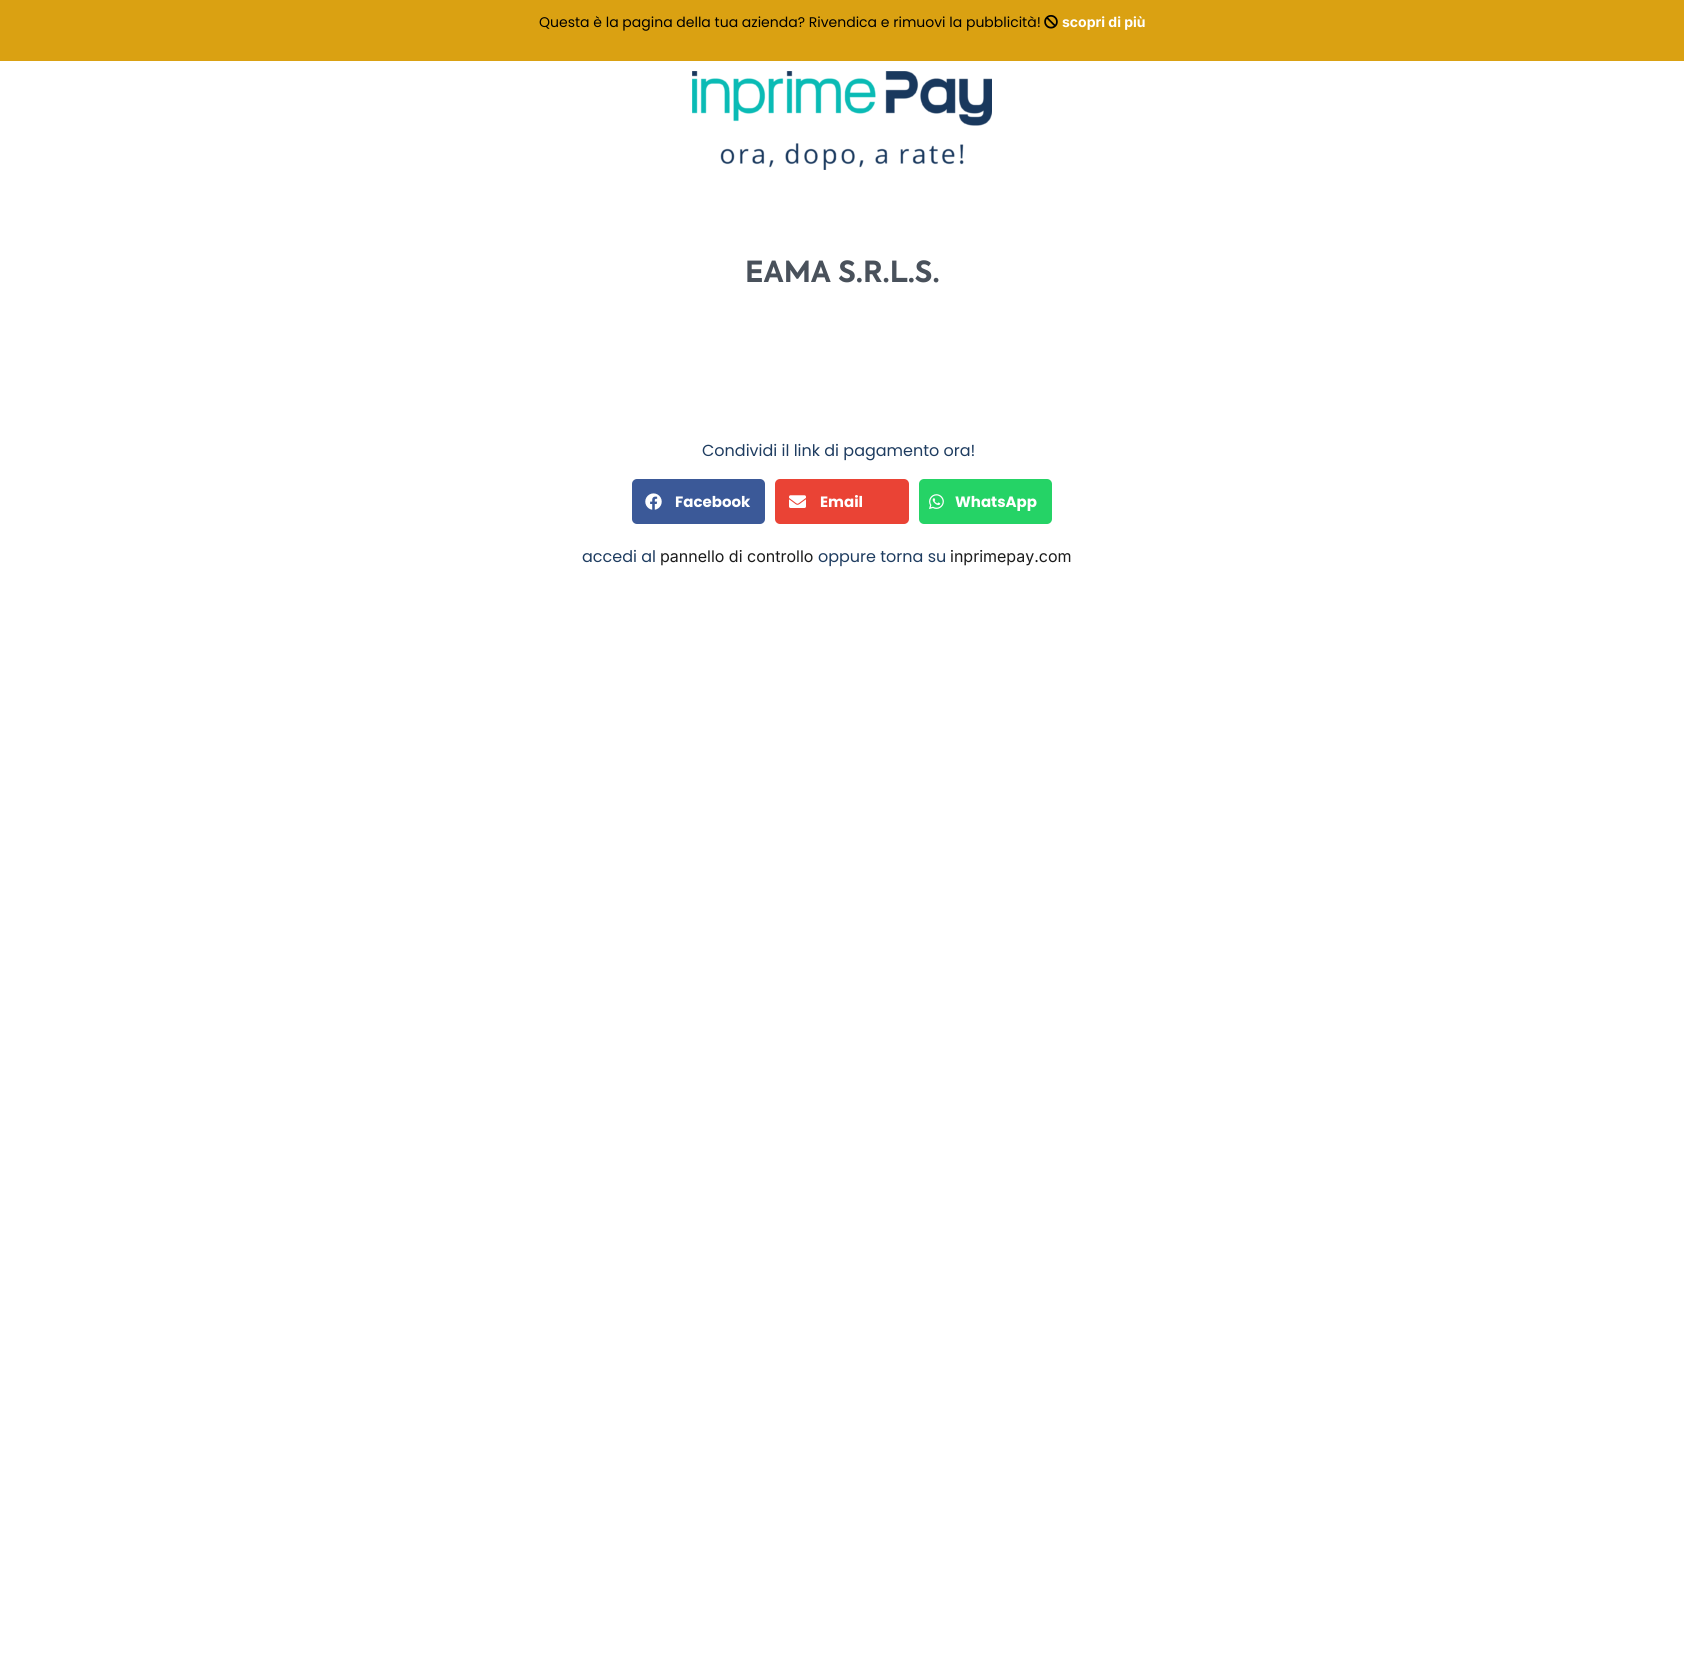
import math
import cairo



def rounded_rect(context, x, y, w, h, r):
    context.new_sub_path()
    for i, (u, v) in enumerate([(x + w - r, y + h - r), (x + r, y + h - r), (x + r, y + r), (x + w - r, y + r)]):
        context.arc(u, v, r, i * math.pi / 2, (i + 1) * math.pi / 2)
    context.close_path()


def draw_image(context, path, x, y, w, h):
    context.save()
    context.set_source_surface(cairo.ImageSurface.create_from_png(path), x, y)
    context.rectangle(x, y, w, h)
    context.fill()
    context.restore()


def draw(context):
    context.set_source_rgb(1, 1, 1)
    context.paint()
    context.set_source_rgb(218 / 255, 161 / 255, 18 / 255)
    context.rectangle(0, 0, 1684, 61)
    context.fill()
    draw_image(context, "images/1.png", 1044, 15, 14, 14)
    draw_image(context, "images/2.png", 692, 71, 300, 99)
    context.set_source_rgb(59 / 255, 89 / 255, 152 / 255)
    rounded_rect(context, 632, 479, 133, 45, 5)
    context.fill()
    draw_image(context, "images/3.png", 645, 493, 17, 17)
    context.set_source_rgb(234 / 255, 67 / 255, 53 / 255)
    rounded_rect(context, 775, 479, 134, 45, 5)
    context.fill()
    draw_image(context, "images/4.png", 789, 495, 17, 13)
    context.set_source_rgb(37 / 255, 211 / 255, 102 / 255)
    rounded_rect(context, 919, 479, 133, 45, 5)
    context.fill()
    draw_image(context, "images/5.png", 929, 494, 15, 15)
    context.select_font_face("Poppins")
    context.set_font_size(14)
    context.set_source_rgb(0, 0, 0)
    context.move_to(539, 27)
    context.show_text("Questa è la pagina della tua azienda? Rivendica e rimuovi la pubblicità!")
    context.select_font_face("Inter", cairo.FontSlant.NORMAL, cairo.FontWeight.BOLD)
    context.set_source_rgb(1, 1, 1)
    context.move_to(1062, 27)
    context.show_text("scopri di più")
    context.select_font_face("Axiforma", cairo.FontSlant.NORMAL, cairo.FontWeight.BOLD)
    context.set_font_size(29)
    context.set_source_rgb(73 / 255, 81 / 255, 91 / 255)
    context.move_to(745, 282)
    context.show_text("EAMA S.R.L.S.")
    context.select_font_face("Poppins")
    context.set_font_size(16)
    context.set_source_rgb(30 / 255, 60 / 255, 96 / 255)
    context.move_to(702, 456)
    context.show_text("Condividi il link di pagamento ora!")
    context.select_font_face("Poppins", cairo.FontSlant.NORMAL, cairo.FontWeight.BOLD)
    context.set_font_size(15)
    context.set_source_rgb(1, 1, 1)
    context.move_to(675, 507)
    context.show_text("Facebook")
    context.move_to(820, 507)
    context.show_text("Email")
    context.move_to(955, 507)
    context.show_text("WhatsApp")
    context.select_font_face("Poppins")
    context.set_font_size(16)
    context.set_source_rgb(30 / 255, 60 / 255, 96 / 255)
    context.move_to(582, 562)
    context.show_text("accedi al")
    context.select_font_face("Inter")
    context.set_source_rgb(27 / 255, 27 / 255, 27 / 255)
    context.move_to(660, 562)
    context.show_text("pannello di controllo")
    context.select_font_face("Poppins")
    context.set_source_rgb(30 / 255, 60 / 255, 96 / 255)
    context.move_to(818, 562)
    context.show_text("oppure torna su")
    context.select_font_face("Inter")
    context.set_source_rgb(27 / 255, 27 / 255, 27 / 255)
    context.move_to(950, 562)
    context.show_text("inprimepay.com")


surface = cairo.ImageSurface(cairo.Format.RGB24, 1684, 1657)
context = cairo.Context(surface)
options = cairo.FontOptions()
options.set_hint_metrics(cairo.HintMetrics.OFF)
options.set_hint_style(cairo.HintStyle.NONE)
context.set_font_options(options)
context.set_miter_limit(4)
draw(context)
surface.write_to_png("out.png")
